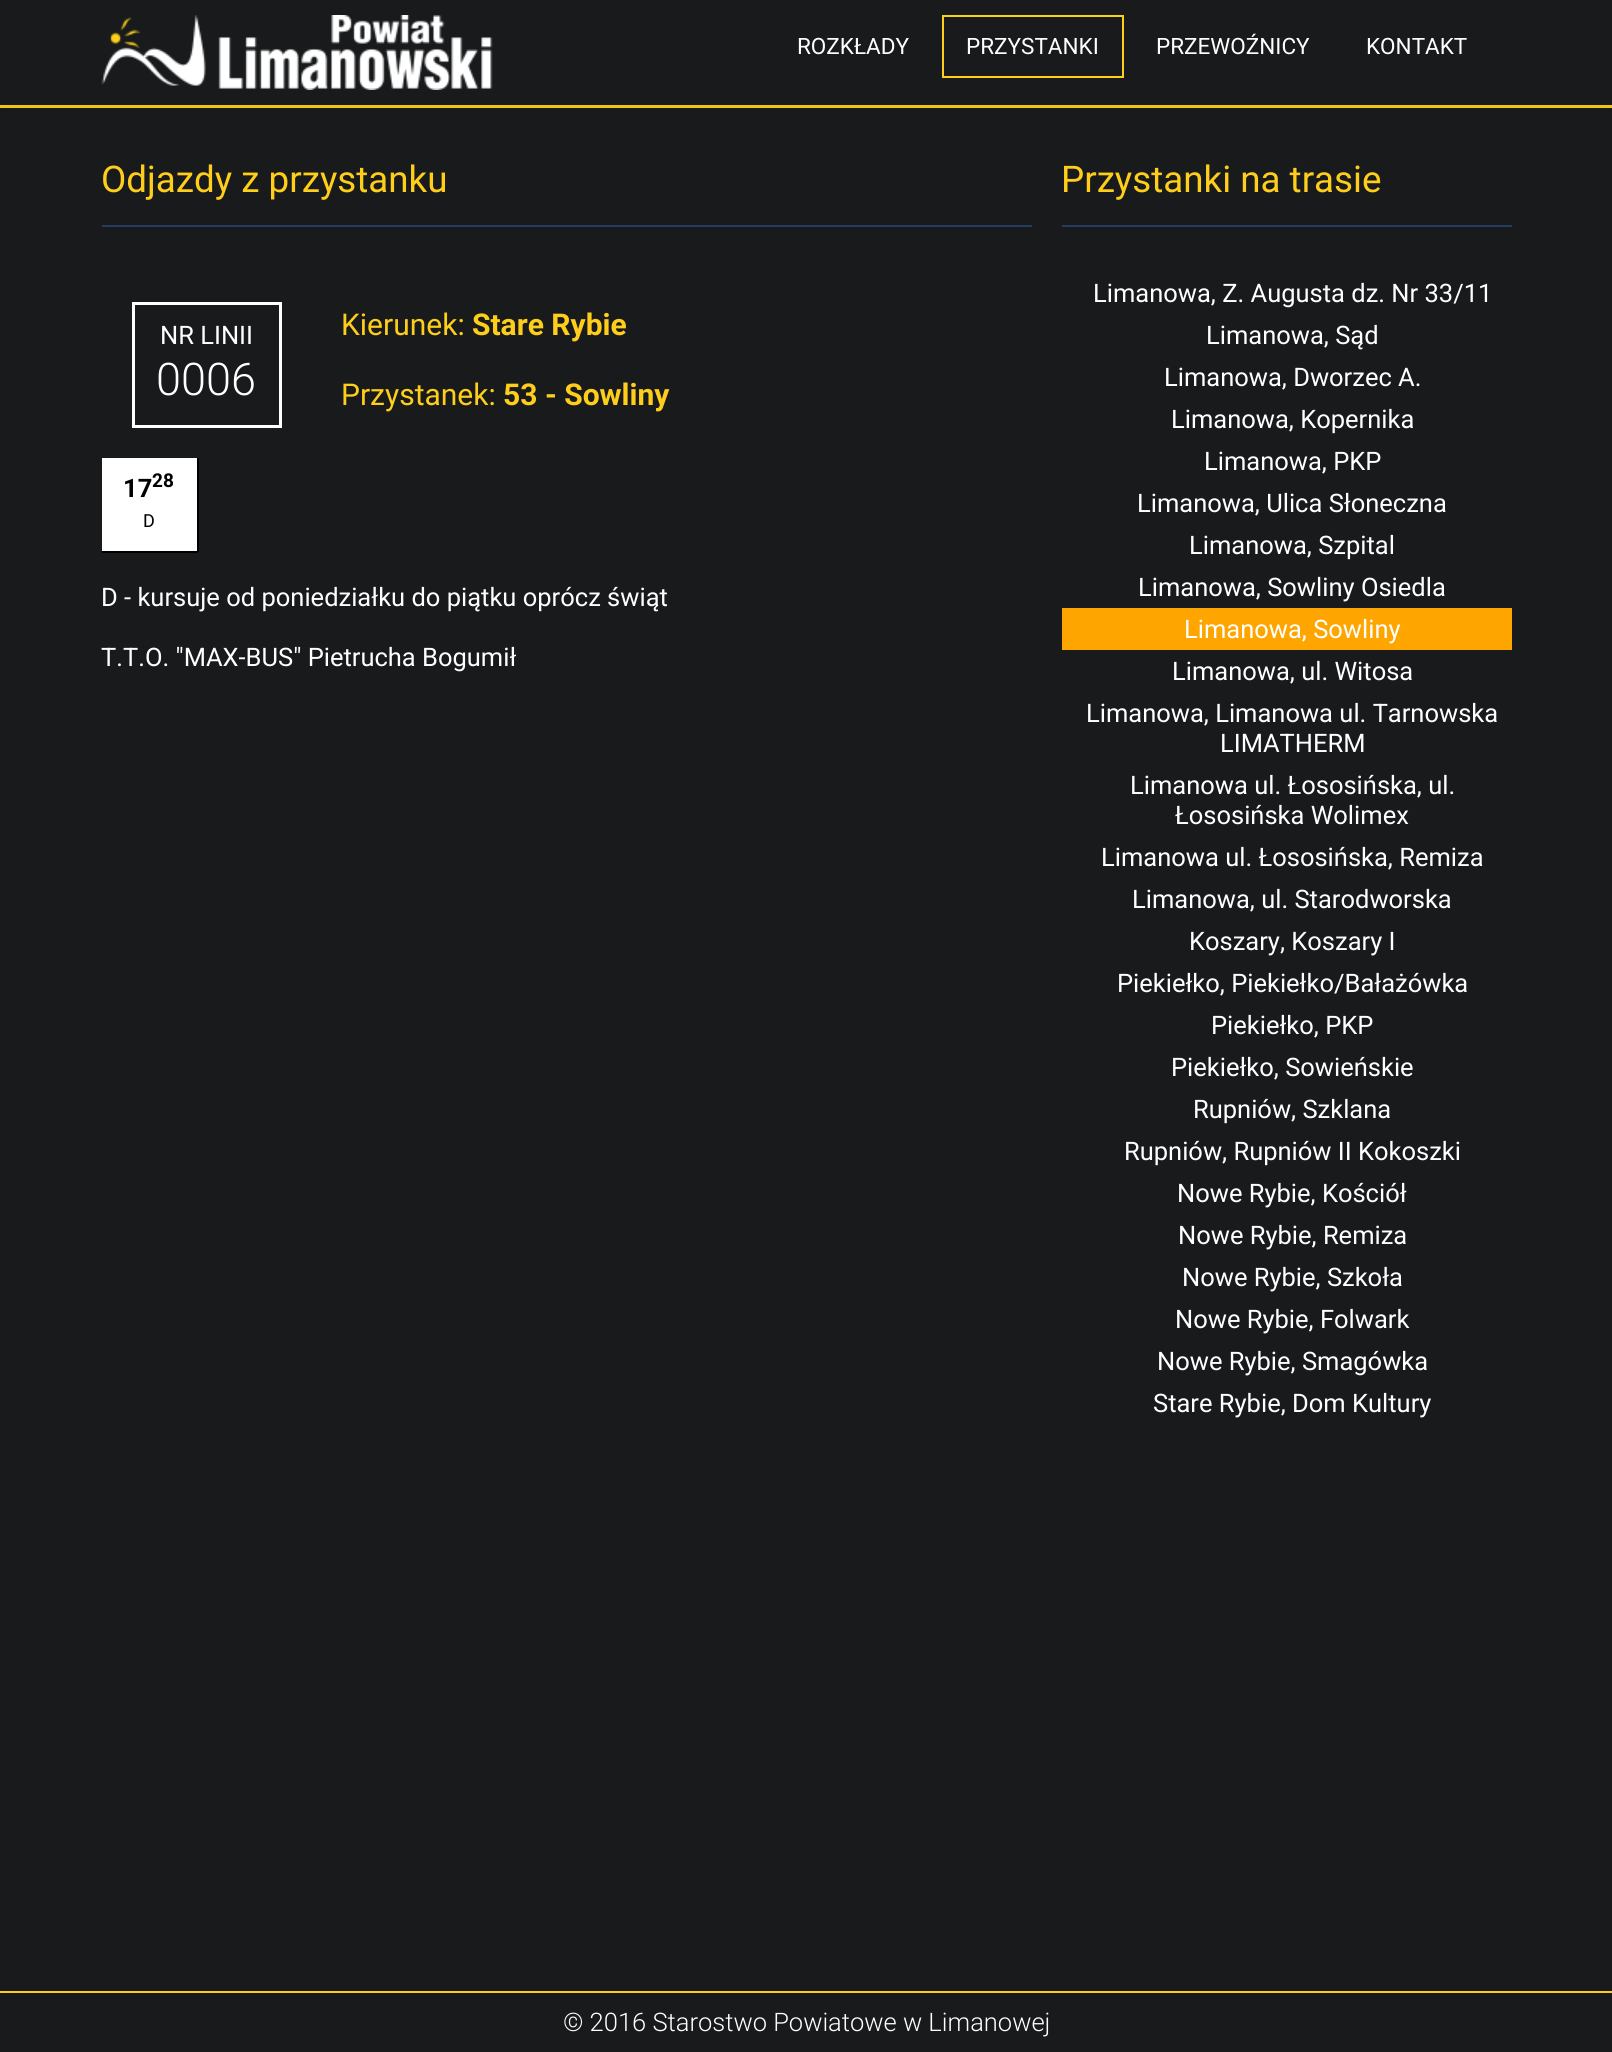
import math
import cairo



def rounded_rect(context, x, y, w, h, r):
    context.new_sub_path()
    for i, (u, v) in enumerate([(x + w - r, y + h - r), (x + r, y + h - r), (x + r, y + r), (x + w - r, y + r)]):
        context.arc(u, v, r, i * math.pi / 2, (i + 1) * math.pi / 2)
    context.close_path()


def draw_shadow(context, x, y, w, h, r, blur, alpha):
    context.push_group_with_content(cairo.Content.ALPHA)
    context.set_operator(cairo.Operator.SOURCE)
    for i in range(15, -16, -2):
        e = blur * i / 6
        if min(w, h) + 2 * e > 0:
            context.set_source_rgba(0, 0, 0, alpha * math.erfc((i - 1) / 8.5) / 2)
            rounded_rect(context, x - e, y - e, w + 2 * e, h + 2 * e, max(0, min(r + e + blur * .6, min(w, h) / 2 + e)))
            context.fill()
    context.mask(context.pop_group())


def draw_image(context, path, x, y, w, h):
    context.save()
    context.set_source_surface(cairo.ImageSurface.create_from_png(path), x, y)
    context.rectangle(x, y, w, h)
    context.fill()
    context.restore()


def draw(context):
    context.set_source_rgb(24 / 255, 26 / 255, 28 / 255)
    context.paint()
    context.set_source_rgb(254 / 255, 206 / 255, 26 / 255)
    context.rectangle(0, 105, 1612, 3)
    context.fill()
    context.save()
    context.rectangle(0, 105, 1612, 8)
    context.clip()
    context.set_source_rgb(0, 0, 0)
    draw_shadow(context, 0, 2, 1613, 105, 0, 7.5, 0.1)
    context.restore()
    draw_image(context, "images/1.png", 101, 15, 392, 75)
    context.rectangle(943, 16, 180, 61)
    context.stroke()
    context.set_source_rgb(35 / 255, 60 / 255, 97 / 255)
    context.rectangle(102, 225, 930, 2)
    context.fill()
    context.rectangle(133.5, 303.5, 147, 123)
    context.set_source_rgb(1, 1, 1)
    context.set_line_width(3)
    context.stroke()
    context.rectangle(102, 458, 95, 93)
    context.fill()
    context.set_source_rgb(0, 0, 0)
    context.rectangle(197, 458, 2, 94)
    context.fill()
    context.rectangle(102, 551, 96, 2)
    context.fill()
    context.set_source_rgb(35 / 255, 60 / 255, 97 / 255)
    context.rectangle(1062, 225, 450, 2)
    context.fill()
    context.set_source_rgb(1, 165 / 255, 0)
    context.rectangle(1062, 608, 450, 42)
    context.fill()
    context.set_source_rgb(254 / 255, 206 / 255, 26 / 255)
    context.rectangle(0, 1991, 1612, 2)
    context.fill()
    context.select_font_face("Roboto")
    context.set_font_size(22.5)
    context.set_source_rgb(1, 1, 1)
    context.move_to(797, 54)
    context.show_text("ROZKŁADY")
    context.move_to(966, 54)
    context.show_text("PRZYSTANKI")
    context.move_to(1156, 54)
    context.show_text("PRZEWOŹNICY")
    context.move_to(1366, 54)
    context.show_text("KONTAKT")
    context.set_font_size(36.75)
    context.set_source_rgb(254 / 255, 206 / 255, 26 / 255)
    context.move_to(101, 192)
    context.show_text("Odjazdy z przystanku")
    context.set_font_size(25.5)
    context.set_source_rgb(1, 1, 1)
    context.move_to(160, 344)
    context.show_text("NR LINII")
    context.select_font_face("Roboto Light")
    context.set_font_size(45)
    context.move_to(156, 395)
    context.show_text("0006")
    context.select_font_face("Roboto")
    context.set_font_size(30)
    context.set_source_rgb(254 / 255, 206 / 255, 26 / 255)
    context.move_to(341, 335)
    context.show_text("Kierunek:")
    context.select_font_face("Roboto", cairo.FontSlant.NORMAL, cairo.FontWeight.BOLD)
    context.move_to(472, 335)
    context.show_text("Stare Rybie")
    context.select_font_face("Roboto")
    context.move_to(341, 405)
    context.show_text("Przystanek:")
    context.select_font_face("Roboto", cairo.FontSlant.NORMAL, cairo.FontWeight.BOLD)
    context.move_to(503, 405)
    context.show_text("53 - Sowliny")
    context.set_font_size(25.5)
    context.set_source_rgb(0, 0, 0)
    context.move_to(123, 497)
    context.show_text("17")
    context.set_font_size(19)
    context.move_to(152, 487)
    context.show_text("28")
    context.select_font_face("Roboto")
    context.set_font_size(18)
    context.move_to(143, 527)
    context.show_text("D")
    context.set_font_size(25.5)
    context.set_source_rgb(1, 1, 1)
    context.move_to(101, 606)
    context.show_text("D - kursuje od poniedziałku do piątku oprócz świąt")
    context.move_to(101, 666)
    context.show_text("T.T.O. \"MAX-BUS\" Pietrucha Bogumił")
    context.set_font_size(36.75)
    context.set_source_rgb(254 / 255, 206 / 255, 26 / 255)
    context.move_to(1061, 192)
    context.show_text("Przystanki na trasie")
    context.set_font_size(25.5)
    context.set_source_rgb(1, 1, 1)
    context.move_to(1093, 302)
    context.show_text("Limanowa, Z. Augusta dz. Nr 33/11")
    context.move_to(1206, 344)
    context.show_text("Limanowa, Sąd")
    context.move_to(1164, 386)
    context.show_text("Limanowa, Dworzec A.")
    context.move_to(1171, 428)
    context.show_text("Limanowa, Kopernika")
    context.move_to(1204, 470)
    context.show_text("Limanowa, PKP")
    context.move_to(1137, 512)
    context.show_text("Limanowa, Ulica Słoneczna")
    context.move_to(1189, 554)
    context.show_text("Limanowa, Szpital")
    context.move_to(1138, 596)
    context.show_text("Limanowa, Sowliny Osiedla")
    context.move_to(1184, 638)
    context.show_text("Limanowa, Sowliny")
    context.move_to(1172, 680)
    context.show_text("Limanowa, ul. Witosa")
    context.move_to(1086, 722)
    context.show_text("Limanowa, Limanowa ul. Tarnowska")
    context.move_to(1220, 752)
    context.show_text("LIMATHERM")
    context.move_to(1130, 794)
    context.show_text("Limanowa ul. Łososińska, ul.")
    context.move_to(1175, 824)
    context.show_text("Łososińska Wolimex")
    context.move_to(1101, 866)
    context.show_text("Limanowa ul. Łososińska, Remiza")
    context.move_to(1132, 908)
    context.show_text("Limanowa, ul. Starodworska")
    context.move_to(1189, 950)
    context.show_text("Koszary, Koszary I")
    context.move_to(1117, 992)
    context.show_text("Piekiełko, Piekiełko/Bałażówka")
    context.move_to(1211, 1034)
    context.show_text("Piekiełko, PKP")
    context.move_to(1171, 1076)
    context.show_text("Piekiełko, Sowieńskie")
    context.move_to(1193, 1118)
    context.show_text("Rupniów, Szklana")
    context.move_to(1124, 1160)
    context.show_text("Rupniów, Rupniów II Kokoszki")
    context.move_to(1177, 1202)
    context.show_text("Nowe Rybie, Kościół")
    context.move_to(1178, 1244)
    context.show_text("Nowe Rybie, Remiza")
    context.move_to(1182, 1286)
    context.show_text("Nowe Rybie, Szkoła")
    context.move_to(1175, 1328)
    context.show_text("Nowe Rybie, Folwark")
    context.move_to(1157, 1370)
    context.show_text("Nowe Rybie, Smagówka")
    context.move_to(1153, 1412)
    context.show_text("Stare Rybie, Dom Kultury")
    context.select_font_face("Roboto Light")
    context.move_to(563, 2031)
    context.show_text("© 2016 Starostwo Powiatowe w Limanowej")


surface = cairo.ImageSurface(cairo.Format.RGB24, 1612, 2052)
context = cairo.Context(surface)
options = cairo.FontOptions()
options.set_hint_metrics(cairo.HintMetrics.OFF)
options.set_hint_style(cairo.HintStyle.NONE)
context.set_font_options(options)
context.set_miter_limit(4)
draw(context)
surface.write_to_png("out.png")
